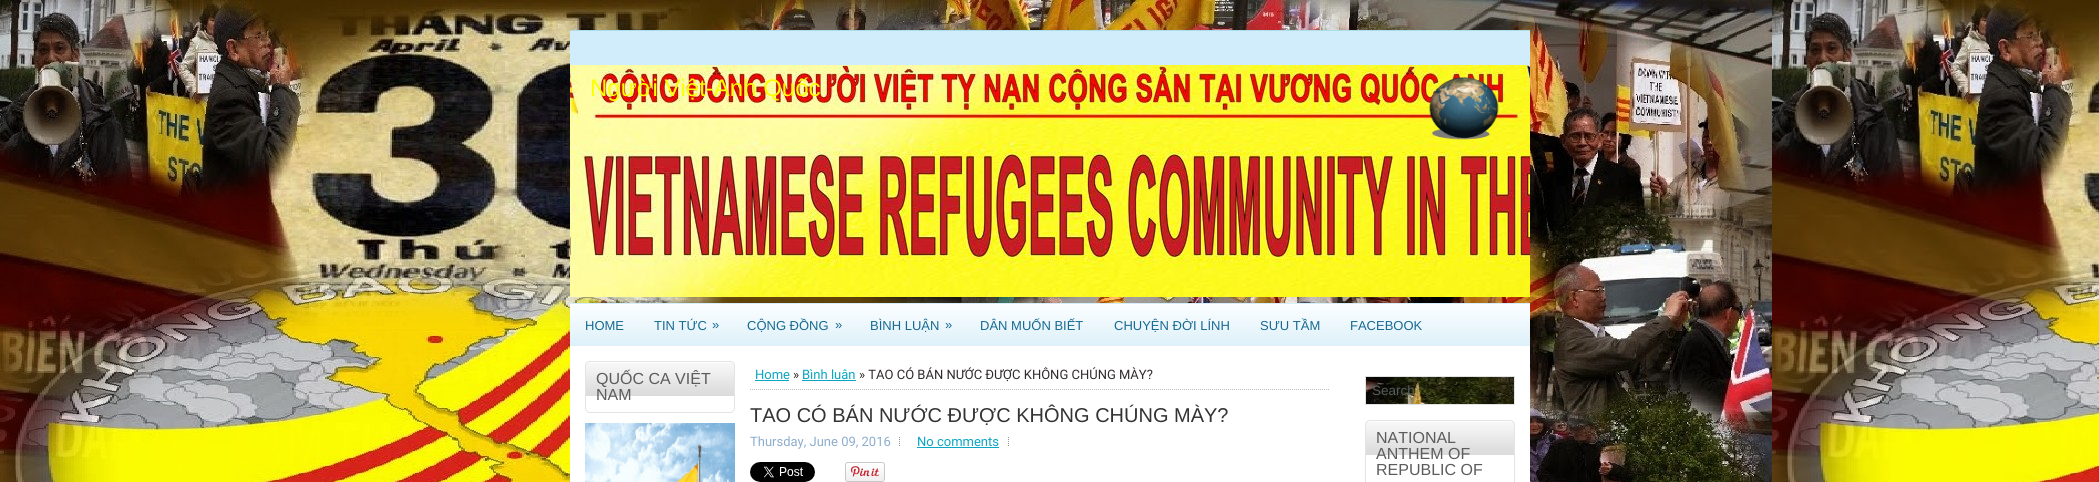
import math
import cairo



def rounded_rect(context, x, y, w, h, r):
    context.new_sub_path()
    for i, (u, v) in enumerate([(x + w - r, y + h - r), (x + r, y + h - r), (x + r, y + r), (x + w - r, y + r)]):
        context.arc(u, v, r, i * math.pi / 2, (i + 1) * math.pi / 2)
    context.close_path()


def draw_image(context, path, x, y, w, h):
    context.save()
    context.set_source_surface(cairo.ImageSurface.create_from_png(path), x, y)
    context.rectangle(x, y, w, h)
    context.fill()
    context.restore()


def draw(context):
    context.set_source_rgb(1, 1, 1)
    context.paint()
    draw_image(context, "images/1.png", 0, 0, 2099, 482)
    draw_image(context, "images/2.png", 570, 65, 960, 232)
    context.set_source_rgb(209 / 255, 237 / 255, 251 / 255)
    context.rectangle(570, 31, 960, 34)
    context.fill()
    context.set_source_rgb(172 / 255, 221 / 255, 234 / 255)
    context.rectangle(570, 30, 960, 1)
    context.fill()
    draw_image(context, "images/3.png", 1429, 76, 70, 64)
    gradient = cairo.LinearGradient(1050, 304, 1050, 346)
    gradient.add_color_stop_rgba(0, 252 / 255, 254 / 255, 1, 1)
    gradient.add_color_stop_rgba(1, 221 / 255, 240 / 255, 249 / 255, 1)
    context.set_source(gradient)
    context.rectangle(570, 304, 960, 42)
    context.fill()
    context.set_source_rgb(212 / 255, 238 / 255, 251 / 255)
    context.rectangle(570, 303, 960, 1)
    context.fill()
    context.set_source_rgb(1, 1, 1)
    context.rectangle(570, 346, 960, 136)
    context.fill()
    draw_image(context, "images/4.png", 585, 363, 150, 33)
    rounded_rect(context, 585.5, 361.5, 149, 51, 4.5)
    context.set_source_rgb(228 / 255, 228 / 255, 228 / 255)
    context.set_line_width(1)
    context.stroke()
    draw_image(context, "images/5.png", 585, 423, 150, 59)
    context.new_path()
    context.move_to(750, 389.5)
    context.line_to(1330, 389.5)
    context.set_source_rgb(187 / 255, 187 / 255, 187 / 255)
    context.set_dash([1, 1])
    context.stroke()
    context.set_source_rgb(10 / 255, 166 / 255, 195 / 255)
    context.rectangle(755, 380, 34, 1)
    context.fill()
    context.rectangle(802, 380, 54, 1)
    context.fill()
    draw_image(context, "images/6.png", 899, 437, 1, 9)
    context.rectangle(917, 447, 82, 1)
    context.fill()
    draw_image(context, "images/6.png", 1008, 437, 1, 9)
    draw_image(context, "images/7.png", 750, 462, 65, 20)
    draw_image(context, "images/8.png", 845, 462, 40, 20)
    draw_image(context, "images/9.png", 1366, 377, 148, 27)
    context.rectangle(1365.5, 376.5, 149, 28)
    context.set_source_rgb(223 / 255, 227 / 255, 227 / 255)
    context.set_dash([])
    context.stroke()
    draw_image(context, "images/4.png", 1365, 422, 150, 33)
    rounded_rect(context, 1365.5, 420.5, 149, 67, 4.5)
    context.set_source_rgb(228 / 255, 228 / 255, 228 / 255)
    context.stroke()
    context.select_font_face("Liberation Sans")
    context.set_font_size(24)
    context.set_source_rgb(252 / 255, 1, 1 / 255)
    context.move_to(590, 96)
    context.show_text("Người Việt-Anh Quốc")
    context.select_font_face("Roboto")
    context.set_font_size(14)
    context.set_source_rgb(229 / 255, 229 / 255, 229 / 255)
    context.move_to(592, 118)
    context.show_text(".")
    context.select_font_face("Liberation Sans")
    context.set_font_size(13)
    context.set_source_rgb(23 / 255, 106 / 255, 147 / 255)
    context.move_to(585, 330)
    context.show_text("HOME")
    context.move_to(654, 330)
    context.show_text("TIN TỨC")
    context.move_to(712, 329)
    context.show_text("»")
    context.move_to(747, 330)
    context.show_text("CỘNG ĐỒNG")
    context.move_to(835, 329)
    context.show_text("»")
    context.move_to(870, 330)
    context.show_text("BÌNH LUẬN")
    context.move_to(945, 329)
    context.show_text("»")
    context.move_to(980, 330)
    context.show_text("DÂN MUỐN BIẾT")
    context.move_to(1114, 330)
    context.show_text("CHUYỆN ĐỜI LÍNH")
    context.move_to(1260, 330)
    context.show_text("SƯU TẦM")
    context.move_to(1350, 330)
    context.show_text("FACEBOOK")
    context.set_font_size(16)
    context.set_source_rgb(92 / 255, 92 / 255, 92 / 255)
    context.move_to(596, 384)
    context.show_text("QUỐC CA VIỆT")
    context.move_to(596, 400)
    context.show_text("NAM")
    context.select_font_face("Roboto")
    context.set_font_size(13)
    context.set_source_rgb(10 / 255, 166 / 255, 195 / 255)
    context.move_to(755, 379)
    context.show_text("Home")
    context.set_source_rgb(49 / 255, 44 / 255, 44 / 255)
    context.move_to(793, 379)
    context.show_text("»")
    context.set_source_rgb(10 / 255, 166 / 255, 195 / 255)
    context.move_to(802, 379)
    context.show_text("Bình luận")
    context.set_source_rgb(49 / 255, 44 / 255, 44 / 255)
    context.move_to(859, 379)
    context.show_text("» TAO CÓ BÁN NƯỚC ĐƯỢC KHÔNG CHÚNG MÀY?")
    context.select_font_face("Liberation Sans")
    context.set_font_size(20)
    context.set_source_rgb(51 / 255, 51 / 255, 51 / 255)
    context.move_to(750, 422)
    context.show_text("TAO CÓ BÁN NƯỚC ĐƯỢC KHÔNG CHÚNG MÀY?")
    context.select_font_face("Roboto")
    context.set_font_size(13)
    context.set_source_rgb(140 / 255, 173 / 255, 204 / 255)
    context.move_to(750, 446)
    context.show_text("Thursday, June 09, 2016")
    context.set_source_rgb(10 / 255, 166 / 255, 195 / 255)
    context.move_to(917, 446)
    context.show_text("No comments")
    context.select_font_face("Liberation Sans")
    context.set_font_size(13.5)
    context.set_source_rgb(86 / 255, 92 / 255, 93 / 255)
    context.move_to(1372, 395)
    context.show_text("Search")
    context.set_font_size(16)
    context.set_source_rgb(92 / 255, 92 / 255, 92 / 255)
    context.move_to(1376, 443)
    context.show_text("NATIONAL")
    context.move_to(1376, 459)
    context.show_text("ANTHEM OF")
    context.move_to(1376, 475)
    context.show_text("REPUBLIC OF")


surface = cairo.ImageSurface(cairo.Format.RGB24, 2099, 482)
context = cairo.Context(surface)
options = cairo.FontOptions()
options.set_hint_metrics(cairo.HintMetrics.OFF)
options.set_hint_style(cairo.HintStyle.NONE)
context.set_font_options(options)
context.set_miter_limit(4)
draw(context)
surface.write_to_png("out.png")
